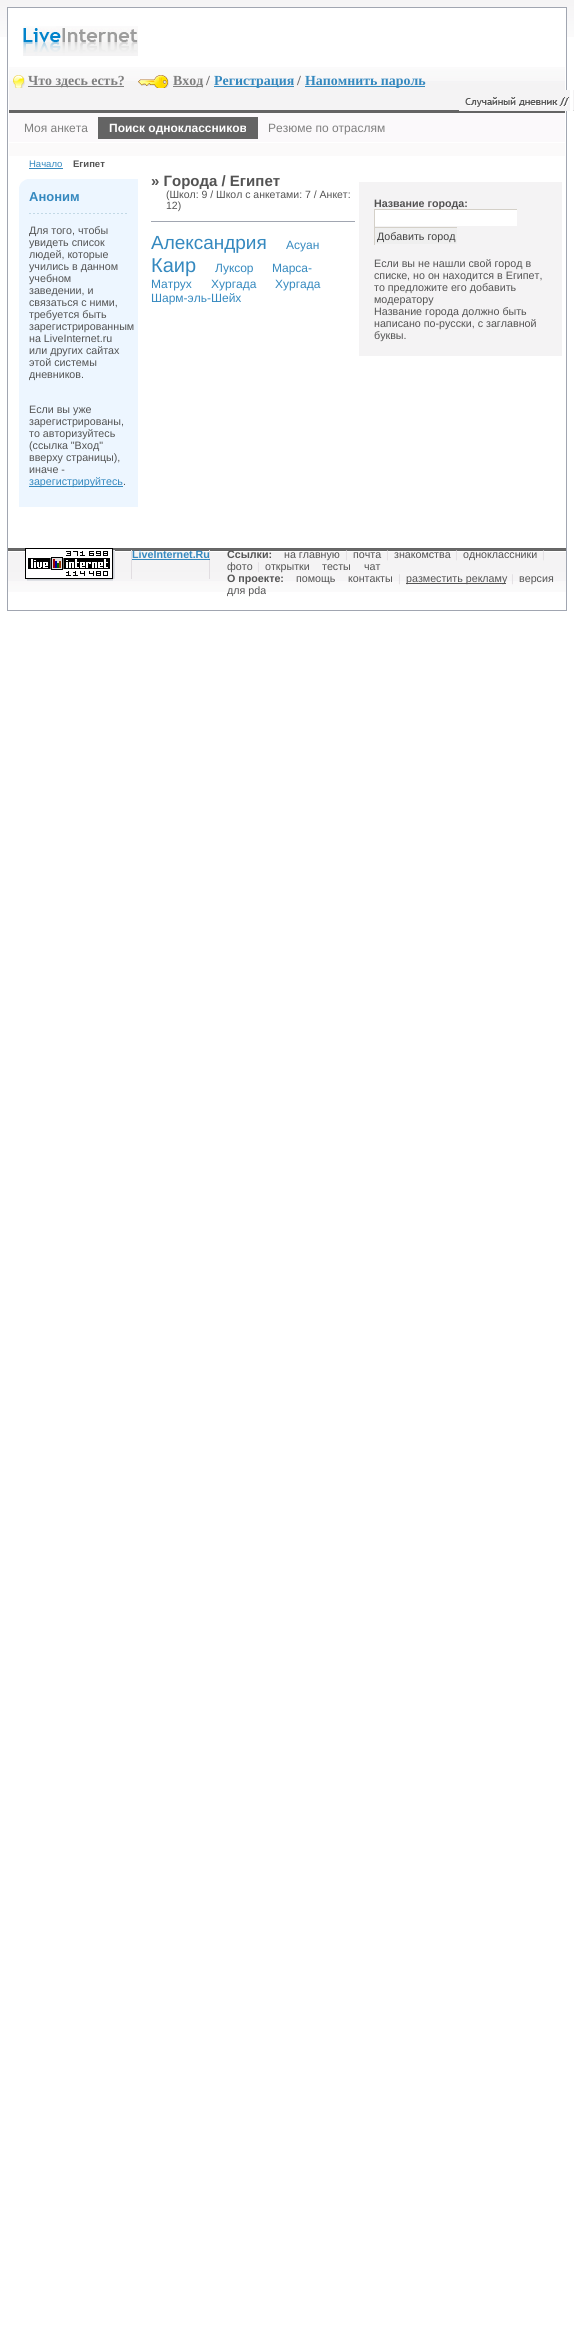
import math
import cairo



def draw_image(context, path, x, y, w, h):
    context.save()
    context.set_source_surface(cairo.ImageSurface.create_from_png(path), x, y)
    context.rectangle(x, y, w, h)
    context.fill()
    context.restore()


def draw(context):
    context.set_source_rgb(1, 1, 1)
    context.paint()
    draw_image(context, "images/1.png", 0, 0, 574, 37)
    context.set_source_rgb(1, 1, 1)
    context.rectangle(8, 8, 558, 29)
    context.fill()
    context.rectangle(7.5, 7.5, 559, 603)
    context.set_source_rgb(161 / 255, 166 / 255, 177 / 255)
    context.set_line_width(1)
    context.stroke()
    draw_image(context, "images/2.png", 9, 67, 556, 43)
    draw_image(context, "images/3.png", 23, 26, 115, 30)
    draw_image(context, "images/4.png", 13, 75, 12, 13)
    context.set_source_rgb(127 / 255, 127 / 255, 127 / 255)
    context.rectangle(28, 86, 96, 1)
    context.fill()
    draw_image(context, "images/5.png", 138, 75, 31, 13)
    context.rectangle(173, 86, 30, 1)
    context.fill()
    context.set_source_rgb(53 / 255, 137 / 255, 191 / 255)
    context.rectangle(214, 86, 80, 1)
    context.fill()
    context.rectangle(305, 86, 120, 1)
    context.fill()
    context.set_source_rgb(100 / 255, 100 / 255, 100 / 255)
    context.rectangle(8, 110, 558, 3)
    context.fill()
    context.set_source_rgb(1, 1, 1)
    context.rectangle(565, 111, 1, 2)
    context.fill()
    context.rectangle(8, 110, 1, 3)
    context.fill()
    draw_image(context, "images/6.png", 459, 90, 111, 21)
    draw_image(context, "images/7.png", 573, 90, 1, 21)
    context.set_source_rgb(251 / 255, 249 / 255, 251 / 255)
    context.rectangle(9, 113, 556, 29)
    context.fill()
    context.set_source_rgb(100 / 255, 100 / 255, 100 / 255)
    context.rectangle(98, 117, 160, 22)
    context.fill()
    context.set_source_rgb(251 / 255, 250 / 255, 250 / 255)
    context.rectangle(9, 143, 556, 13)
    context.fill()
    context.set_source_rgb(53 / 255, 137 / 255, 191 / 255)
    context.rectangle(29, 168, 34, 1)
    context.fill()
    context.set_source_rgb(237 / 255, 246 / 255, 1)
    context.rectangle(19, 179, 119, 328)
    context.fill()
    draw_image(context, "images/8.png", 19, 179, 8, 8)
    draw_image(context, "images/9.png", 29, 213, 98, 1)
    context.set_source_rgb(53 / 255, 137 / 255, 191 / 255)
    context.rectangle(29, 486, 94, 1)
    context.fill()
    context.set_source_rgb(161 / 255, 166 / 255, 177 / 255)
    context.rectangle(151, 221, 204, 1)
    context.fill()
    context.set_source_rgb(244 / 255, 243 / 255, 244 / 255)
    context.rectangle(359, 182, 203, 174)
    context.fill()
    context.set_source_rgb(1, 1, 1)
    context.rectangle(375, 210, 142, 16)
    context.fill()
    context.set_source_rgb(239 / 255, 239 / 255, 239 / 255)
    context.rectangle(375, 228, 82, 16)
    context.fill()
    context.set_source_rgb(212 / 255, 208 / 255, 200 / 255)
    context.rectangle(374, 227, 84, 1)
    context.fill()
    context.set_source_rgb(244 / 255, 244 / 255, 244 / 255)
    context.rectangle(457, 227, 1, 1)
    context.fill()
    context.set_source_rgb(212 / 255, 208 / 255, 200 / 255)
    context.rectangle(374, 227, 1, 18)
    context.fill()
    draw_image(context, "images/10.png", 8, 548, 558, 44)
    draw_image(context, "images/11.png", 27, 550, 105, 31)
    draw_image(context, "images/12.png", 25, 548, 88, 31)
    context.set_source_rgb(225 / 255, 221 / 255, 225 / 255)
    context.rectangle(209, 550, 1, 29)
    context.fill()
    context.set_source_rgb(53 / 255, 137 / 255, 191 / 255)
    context.rectangle(132, 559, 78, 1)
    context.fill()
    context.set_source_rgb(83 / 255, 83 / 255, 83 / 255)
    context.rectangle(406, 583, 100, 1)
    context.fill()
    context.select_font_face("Liberation Serif", cairo.FontSlant.NORMAL, cairo.FontWeight.BOLD)
    context.set_font_size(13.9)
    context.set_source_rgb(127 / 255, 127 / 255, 127 / 255)
    context.move_to(28, 85)
    context.show_text("Что здесь есть?")
    context.move_to(173, 85)
    context.show_text("Вход")
    context.set_source_rgb(106 / 255, 105 / 255, 105 / 255)
    context.move_to(206, 85)
    context.show_text("/")
    context.set_source_rgb(53 / 255, 137 / 255, 191 / 255)
    context.move_to(214, 85)
    context.show_text("Регистрация")
    context.set_source_rgb(106 / 255, 105 / 255, 105 / 255)
    context.move_to(297, 85)
    context.show_text("/")
    context.set_source_rgb(53 / 255, 137 / 255, 191 / 255)
    context.move_to(305, 85)
    context.show_text("Напомнить пароль")
    context.select_font_face("Liberation Sans")
    context.set_font_size(12)
    context.set_source_rgb(127 / 255, 127 / 255, 127 / 255)
    context.move_to(24, 132)
    context.show_text("Моя анкета")
    context.select_font_face("Liberation Sans", cairo.FontSlant.NORMAL, cairo.FontWeight.BOLD)
    context.set_source_rgb(1, 1, 1)
    context.move_to(109, 132)
    context.show_text("Поиск одноклассников")
    context.select_font_face("Liberation Sans")
    context.set_source_rgb(127 / 255, 127 / 255, 127 / 255)
    context.move_to(268, 132)
    context.show_text("Резюме по отраслям")
    context.set_font_size(9.5)
    context.set_source_rgb(53 / 255, 137 / 255, 191 / 255)
    context.move_to(29, 167)
    context.show_text("Начало")
    context.select_font_face("Liberation Sans", cairo.FontSlant.NORMAL, cairo.FontWeight.BOLD)
    context.set_source_rgb(83 / 255, 83 / 255, 83 / 255)
    context.move_to(73, 167)
    context.show_text("Египет")
    context.set_font_size(13)
    context.set_source_rgb(53 / 255, 137 / 255, 191 / 255)
    context.move_to(29, 201)
    context.show_text("Аноним")
    context.select_font_face("Liberation Sans")
    context.set_font_size(10.7)
    context.set_source_rgb(83 / 255, 83 / 255, 83 / 255)
    context.move_to(29, 234)
    context.show_text("Для того, чтобы")
    context.move_to(29, 246)
    context.show_text("увидеть список")
    context.move_to(29, 258)
    context.show_text("людей, которые")
    context.move_to(29, 270)
    context.show_text("учились в данном")
    context.move_to(29, 282)
    context.show_text("учебном")
    context.move_to(29, 294)
    context.show_text("заведении, и")
    context.move_to(29, 306)
    context.show_text("связаться с ними,")
    context.move_to(29, 318)
    context.show_text("требуется быть")
    context.move_to(29, 330)
    context.show_text("зарегистрированным")
    context.move_to(29, 342)
    context.show_text("на LiveInternet.ru")
    context.move_to(29, 354)
    context.show_text("или других сайтах")
    context.move_to(29, 366)
    context.show_text("этой системы")
    context.move_to(29, 378)
    context.show_text("дневников.")
    context.move_to(29, 413)
    context.show_text("Если вы уже")
    context.move_to(29, 425)
    context.show_text("зарегистрированы,")
    context.move_to(29, 437)
    context.show_text("то авторизуйтесь")
    context.move_to(29, 449)
    context.show_text("(ссылка \"Вход\"")
    context.move_to(29, 461)
    context.show_text("вверху страницы),")
    context.move_to(29, 473)
    context.show_text("иначе -")
    context.set_source_rgb(53 / 255, 137 / 255, 191 / 255)
    context.move_to(29, 485)
    context.show_text("зарегистрируйтесь")
    context.set_source_rgb(83 / 255, 83 / 255, 83 / 255)
    context.move_to(123, 485)
    context.show_text(".")
    context.select_font_face("Liberation Sans", cairo.FontSlant.NORMAL, cairo.FontWeight.BOLD)
    context.set_font_size(15)
    context.move_to(151, 186)
    context.show_text("» Города / Египет")
    context.select_font_face("Liberation Sans")
    context.set_font_size(10.5)
    context.move_to(166, 198)
    context.show_text("(Школ: 9 / Школ с анкетами: 7 / Анкет:")
    context.move_to(166, 209)
    context.show_text("12)")
    context.set_font_size(19)
    context.set_source_rgb(53 / 255, 137 / 255, 191 / 255)
    context.move_to(151, 249)
    context.show_text("Александрия")
    context.set_font_size(12)
    context.move_to(286, 249)
    context.show_text("Асуан")
    context.set_font_size(20)
    context.move_to(151, 272)
    context.show_text("Каир")
    context.set_font_size(12)
    context.move_to(215, 272)
    context.show_text("Луксор")
    context.move_to(272, 272)
    context.show_text("Марса-")
    context.move_to(151, 288)
    context.show_text("Матрух")
    context.move_to(211, 288)
    context.show_text("Хургада")
    context.move_to(275, 288)
    context.show_text("Хургада")
    context.move_to(151, 302)
    context.show_text("Шарм-эль-Шейх")
    context.select_font_face("Liberation Sans", cairo.FontSlant.NORMAL, cairo.FontWeight.BOLD)
    context.set_font_size(10.7)
    context.set_source_rgb(83 / 255, 83 / 255, 83 / 255)
    context.move_to(374, 207)
    context.show_text("Название города:")
    context.set_source_rgb(212 / 255, 208 / 255, 200 / 255)
    context.rectangle(374, 209, 144, 1)
    context.fill()
    context.set_source_rgb(244 / 255, 244 / 255, 244 / 255)
    context.rectangle(517, 209, 1, 1)
    context.fill()
    context.set_source_rgb(212 / 255, 208 / 255, 200 / 255)
    context.rectangle(374, 209, 1, 18)
    context.fill()
    context.select_font_face("Liberation Sans")
    context.set_source_rgb(64 / 255, 64 / 255, 64 / 255)
    context.move_to(377, 240)
    context.show_text("Добавить город")
    context.set_source_rgb(83 / 255, 83 / 255, 83 / 255)
    context.move_to(374, 267)
    context.show_text("Если вы не нашли свой город в")
    context.move_to(374, 279)
    context.show_text("списке, но он находится в Египет,")
    context.move_to(374, 291)
    context.show_text("то предложите его добавить")
    context.move_to(374, 303)
    context.show_text("модератору")
    context.move_to(374, 315)
    context.show_text("Название города должно быть")
    context.move_to(374, 327)
    context.show_text("написано по-русски, с заглавной")
    context.move_to(374, 339)
    context.show_text("буквы.")
    context.select_font_face("Liberation Sans", cairo.FontSlant.NORMAL, cairo.FontWeight.BOLD)
    context.set_source_rgb(53 / 255, 137 / 255, 191 / 255)
    context.move_to(132, 558)
    context.show_text("LiveInternet.Ru")
    context.set_source_rgb(83 / 255, 83 / 255, 83 / 255)
    context.move_to(227, 558)
    context.show_text("Ссылки:")
    context.select_font_face("Liberation Sans")
    context.move_to(284, 558)
    context.show_text("на главную")
    context.set_source_rgb(225 / 255, 221 / 255, 225 / 255)
    context.move_to(345, 558)
    context.show_text("|")
    context.set_source_rgb(83 / 255, 83 / 255, 83 / 255)
    context.move_to(353, 558)
    context.show_text("почта")
    context.set_source_rgb(225 / 255, 221 / 255, 225 / 255)
    context.move_to(386, 558)
    context.show_text("|")
    context.set_source_rgb(83 / 255, 83 / 255, 83 / 255)
    context.move_to(394, 558)
    context.show_text("знакомства")
    context.set_source_rgb(225 / 255, 221 / 255, 225 / 255)
    context.move_to(455, 558)
    context.show_text("|")
    context.set_source_rgb(83 / 255, 83 / 255, 83 / 255)
    context.move_to(463, 558)
    context.show_text("одноклассники")
    context.set_source_rgb(225 / 255, 221 / 255, 225 / 255)
    context.move_to(542, 558)
    context.show_text("|")
    context.set_source_rgb(83 / 255, 83 / 255, 83 / 255)
    context.move_to(227, 570)
    context.show_text("фото")
    context.set_source_rgb(225 / 255, 221 / 255, 225 / 255)
    context.move_to(257, 570)
    context.show_text("|")
    context.set_source_rgb(83 / 255, 83 / 255, 83 / 255)
    context.move_to(265, 570)
    context.show_text("открытки")
    context.move_to(322, 570)
    context.show_text("тесты")
    context.move_to(364, 570)
    context.show_text("чат")
    context.select_font_face("Liberation Sans", cairo.FontSlant.NORMAL, cairo.FontWeight.BOLD)
    context.move_to(227, 582)
    context.show_text("О проекте:")
    context.select_font_face("Liberation Sans")
    context.move_to(296, 582)
    context.show_text("помощь")
    context.move_to(348, 582)
    context.show_text("контакты")
    context.set_source_rgb(225 / 255, 221 / 255, 225 / 255)
    context.move_to(398, 582)
    context.show_text("|")
    context.set_source_rgb(83 / 255, 83 / 255, 83 / 255)
    context.move_to(406, 582)
    context.show_text("разместить рекламу")
    context.set_source_rgb(225 / 255, 221 / 255, 225 / 255)
    context.move_to(511, 582)
    context.show_text("|")
    context.set_source_rgb(83 / 255, 83 / 255, 83 / 255)
    context.move_to(519, 582)
    context.show_text("версия")
    context.move_to(227, 594)
    context.show_text("для pda")


surface = cairo.ImageSurface(cairo.Format.RGB24, 574, 2345)
context = cairo.Context(surface)
options = cairo.FontOptions()
options.set_hint_metrics(cairo.HintMetrics.OFF)
options.set_hint_style(cairo.HintStyle.NONE)
context.set_font_options(options)
context.set_miter_limit(4)
draw(context)
surface.write_to_png("out.png")
